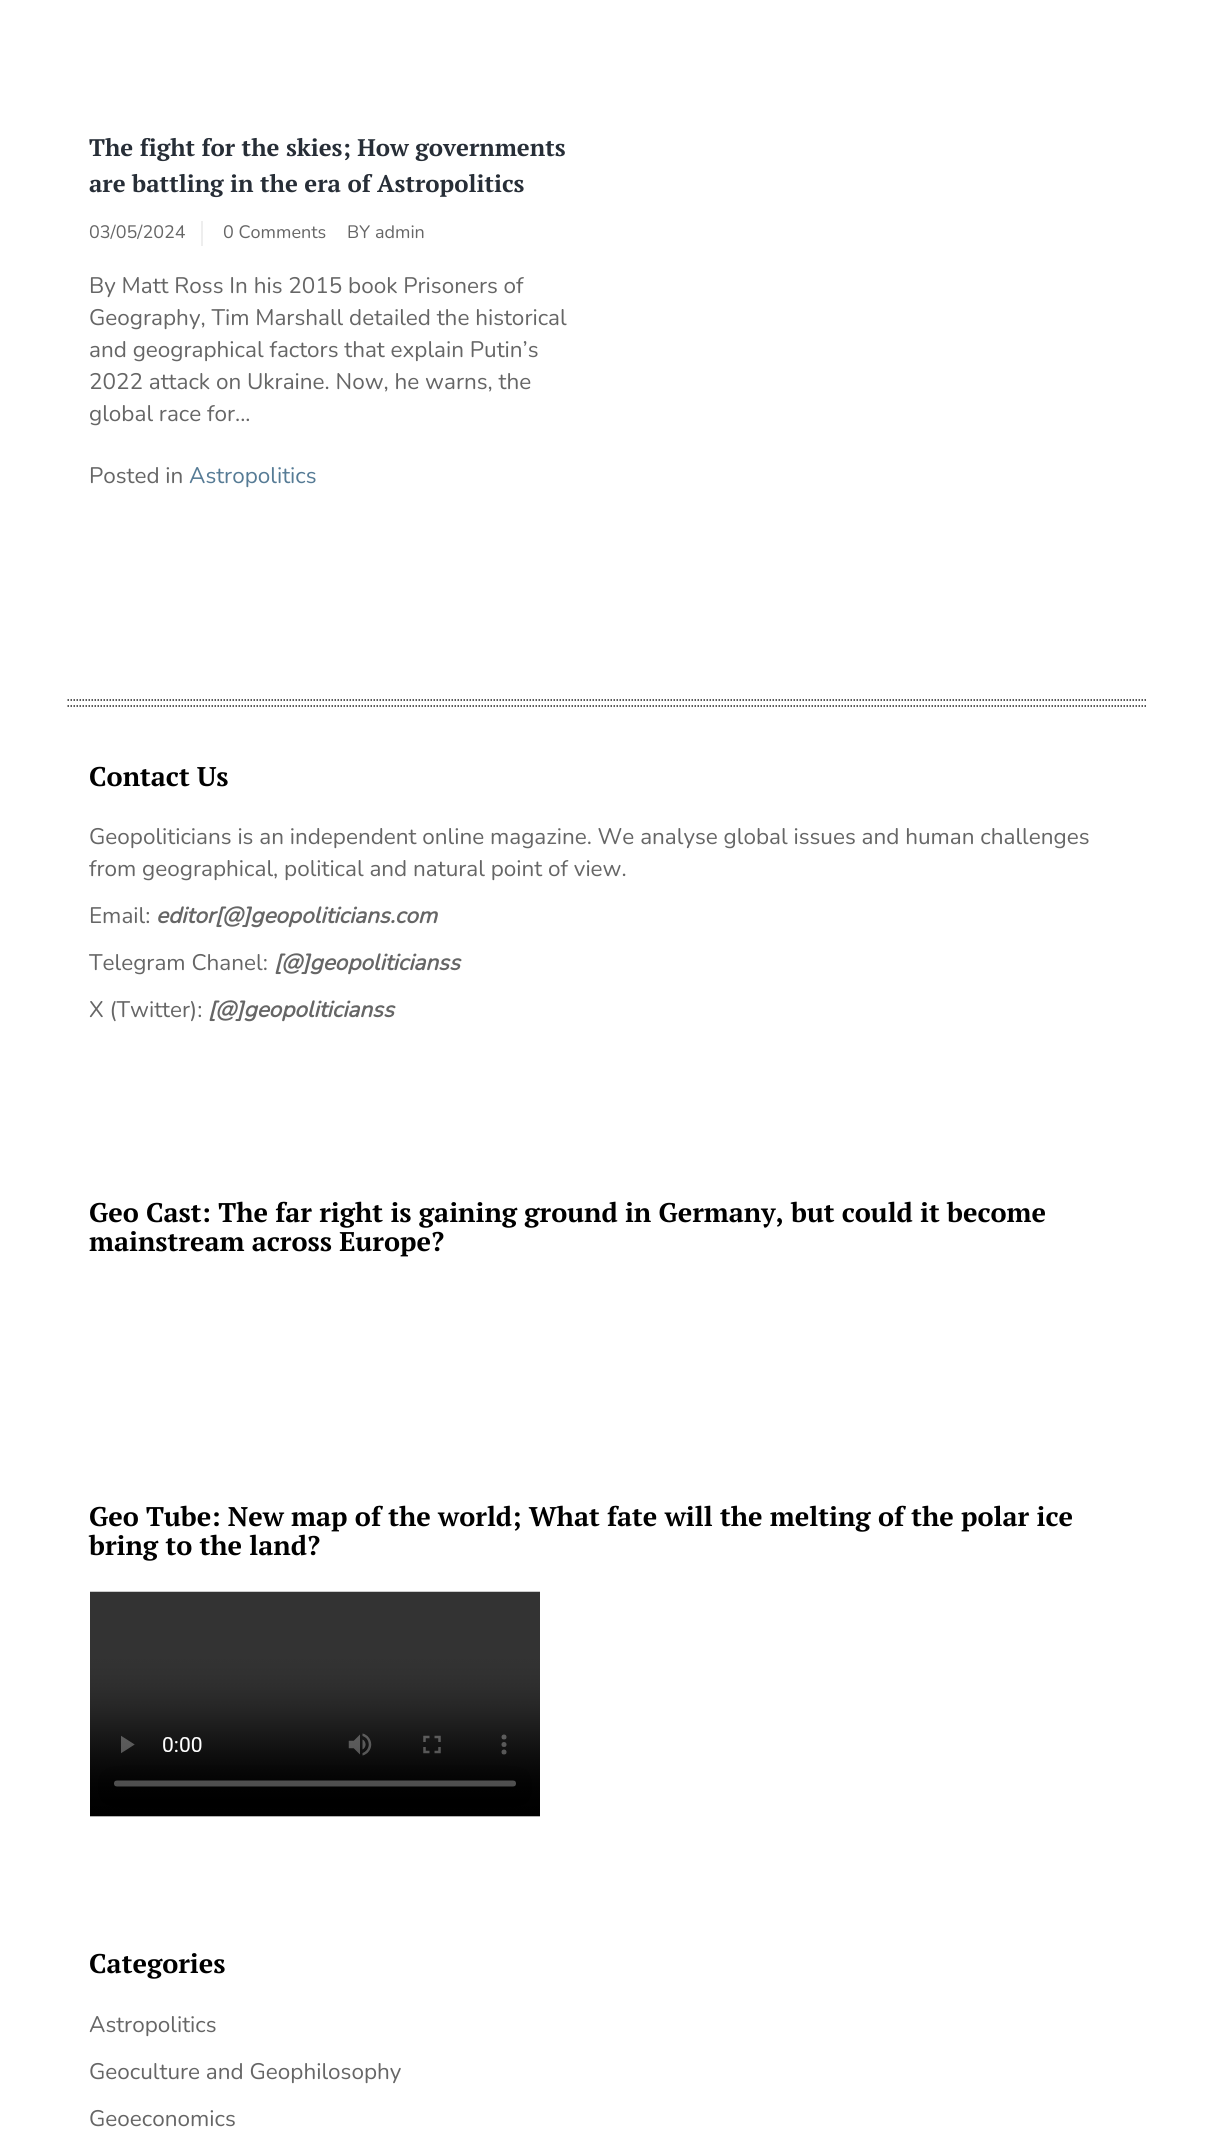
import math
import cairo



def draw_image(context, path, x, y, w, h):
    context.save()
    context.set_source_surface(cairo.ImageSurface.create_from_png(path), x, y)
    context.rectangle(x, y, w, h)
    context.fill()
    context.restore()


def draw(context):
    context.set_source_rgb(1, 1, 1)
    context.paint()
    context.set_source_rgb(238 / 255, 238 / 255, 238 / 255)
    context.rectangle(201, 221, 2, 25)
    context.fill()
    context.new_path()
    context.move_to(67.5, 700)
    context.line_to(1147.5, 700)
    context.set_source_rgb(34 / 255, 34 / 255, 34 / 255)
    context.set_line_width(1.5)
    context.set_dash([1.5, 1.5])
    context.stroke()
    context.new_path()
    context.move_to(67.5, 706)
    context.line_to(1147.5, 706)
    context.stroke()
    draw_image(context, "images/1.png", 90, 1591, 450, 226)
    context.select_font_face("PT Serif", cairo.FontSlant.NORMAL, cairo.FontWeight.BOLD)
    context.set_font_size(24)
    context.set_source_rgb(39 / 255, 46 / 255, 55 / 255)
    context.move_to(89, 156)
    context.show_text("The fight for the skies; How governments")
    context.move_to(89, 192)
    context.show_text("are battling in the era of Astropolitics")
    context.select_font_face("Nunito")
    context.set_font_size(18)
    context.set_source_rgb(102 / 255, 102 / 255, 102 / 255)
    context.move_to(89, 238)
    context.show_text("03/05/2024")
    context.move_to(223, 238)
    context.show_text("0 Comments")
    context.move_to(347, 238)
    context.show_text("BY")
    context.move_to(375, 238)
    context.show_text("admin")
    context.set_font_size(22.5)
    context.move_to(89, 293)
    context.show_text("By Matt Ross In his 2015 book Prisoners of")
    context.move_to(89, 325)
    context.show_text("Geography, Tim Marshall detailed the historical")
    context.move_to(89, 357)
    context.show_text("and geographical factors that explain Putin’s")
    context.move_to(89, 389)
    context.show_text("2022 attack on Ukraine. Now, he warns, the")
    context.move_to(89, 421)
    context.show_text("global race for...")
    context.move_to(89, 483)
    context.show_text("Posted in")
    context.set_source_rgb(86 / 255, 123 / 255, 149 / 255)
    context.move_to(189, 483)
    context.show_text("Astropolitics")
    context.select_font_face("PT Serif", cairo.FontSlant.NORMAL, cairo.FontWeight.BOLD)
    context.set_font_size(27)
    context.set_source_rgb(0, 0, 0)
    context.move_to(89, 786)
    context.show_text("Contact Us")
    context.select_font_face("Nunito")
    context.set_font_size(22.5)
    context.set_source_rgb(102 / 255, 102 / 255, 102 / 255)
    context.move_to(89, 844)
    context.show_text("Geopoliticians is an independent online magazine. We analyse global issues and human challenges")
    context.move_to(89, 876)
    context.show_text("from geographical, political and natural point of view.")
    context.move_to(89, 923)
    context.show_text("Email:")
    context.select_font_face("Nunito", cairo.FontSlant.ITALIC, cairo.FontWeight.BOLD)
    context.move_to(156, 923)
    context.show_text("editor[@]geopoliticians.com")
    context.select_font_face("Nunito")
    context.move_to(89, 970)
    context.show_text("Telegram Chanel:")
    context.select_font_face("Nunito", cairo.FontSlant.ITALIC, cairo.FontWeight.BOLD)
    context.move_to(274, 970)
    context.show_text("[@]geopoliticianss")
    context.select_font_face("Nunito")
    context.move_to(89, 1017)
    context.show_text("X (Twitter):")
    context.select_font_face("Nunito", cairo.FontSlant.ITALIC, cairo.FontWeight.BOLD)
    context.move_to(208, 1017)
    context.show_text("[@]geopoliticianss")
    context.select_font_face("PT Serif", cairo.FontSlant.NORMAL, cairo.FontWeight.BOLD)
    context.set_font_size(27)
    context.set_source_rgb(0, 0, 0)
    context.move_to(89, 1222)
    context.show_text("Geo Cast: The far right is gaining ground in Germany, but could it become")
    context.move_to(89, 1251)
    context.show_text("mainstream across Europe?")
    context.move_to(89, 1526)
    context.show_text("Geo Tube: New map of the world; What fate will the melting of the polar ice")
    context.move_to(89, 1555)
    context.show_text("bring to the land?")
    context.move_to(89, 1973)
    context.show_text("Categories")
    context.select_font_face("Nunito")
    context.set_font_size(22.5)
    context.set_source_rgb(102 / 255, 102 / 255, 102 / 255)
    context.move_to(89, 2032)
    context.show_text("Astropolitics")
    context.move_to(89, 2079)
    context.show_text("Geoculture and Geophilosophy")
    context.move_to(89, 2126)
    context.show_text("Geoeconomics")


surface = cairo.ImageSurface(cairo.Format.RGB24, 1213, 2151)
context = cairo.Context(surface)
options = cairo.FontOptions()
options.set_hint_metrics(cairo.HintMetrics.OFF)
options.set_hint_style(cairo.HintStyle.NONE)
context.set_font_options(options)
context.set_miter_limit(4)
draw(context)
surface.write_to_png("out.png")
